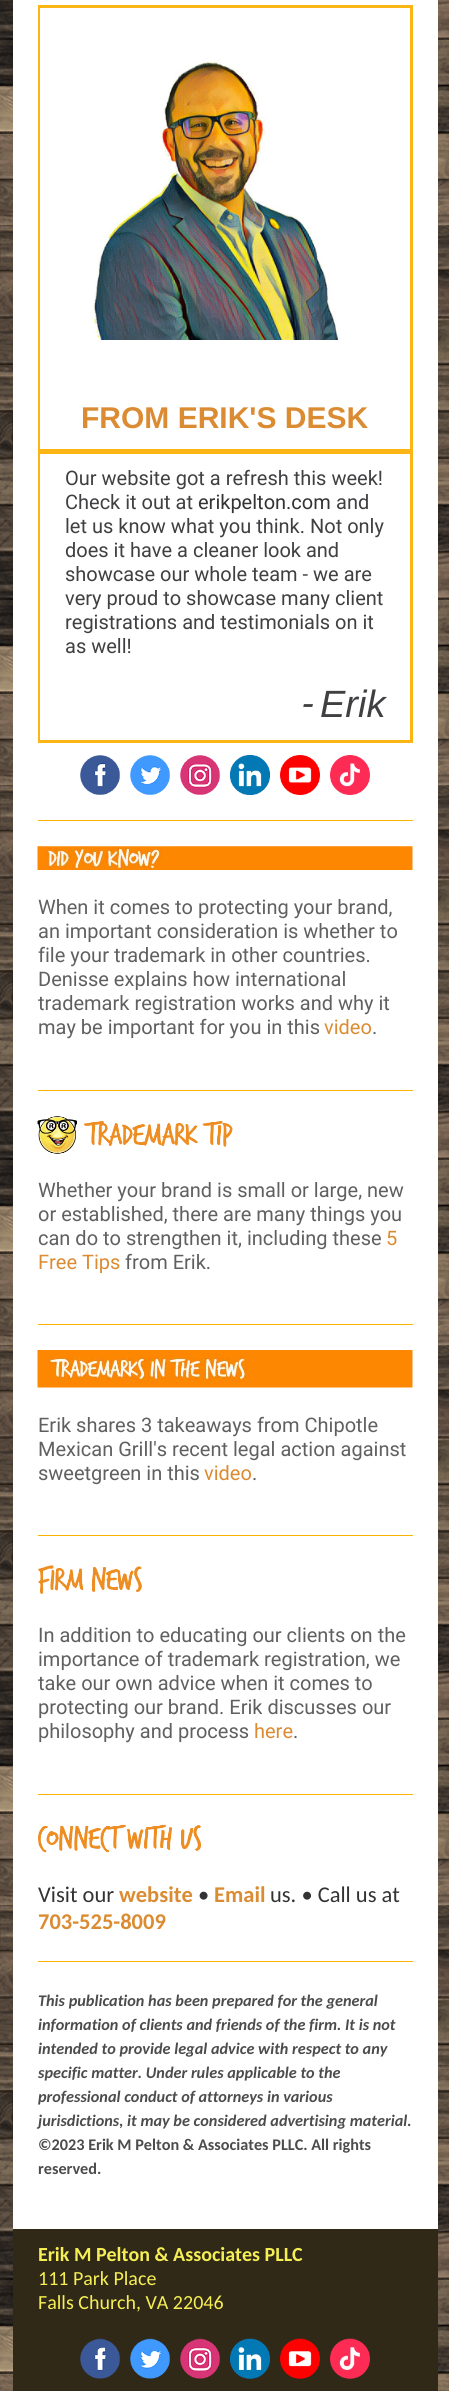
import math
import cairo



def draw_image(context, path, x, y, w, h):
    context.save()
    context.set_source_surface(cairo.ImageSurface.create_from_png(path), x, y)
    context.rectangle(x, y, w, h)
    context.fill()
    context.restore()


def draw(context):
    context.set_source_rgb(1, 1, 1)
    context.paint()
    draw_image(context, "images/1.png", 0, 0, 449, 2391)
    context.set_source_rgb(1, 1, 1)
    context.rectangle(13, 0, 425, 2229)
    context.fill()
    context.set_source_rgb(251 / 255, 182 / 255, 21 / 255)
    context.rectangle(38, 5, 375, 738)
    context.fill()
    context.set_source_rgb(1, 1, 1)
    context.rectangle(40, 8, 370, 441)
    context.fill()
    draw_image(context, "images/2.png", 91, 60, 250, 280)
    context.rectangle(40, 454, 370, 286)
    context.fill()
    draw_image(context, "images/3.png", 80, 755, 40, 40)
    draw_image(context, "images/4.png", 130, 755, 40, 40)
    draw_image(context, "images/5.png", 180, 755, 40, 40)
    draw_image(context, "images/6.png", 230, 755, 40, 40)
    draw_image(context, "images/7.png", 280, 755, 40, 40)
    draw_image(context, "images/8.png", 330, 755, 40, 40)
    context.set_source_rgb(252 / 255, 178 / 255, 0)
    context.rectangle(38, 820, 375, 1)
    context.fill()
    draw_image(context, "images/9.png", 37, 846, 376, 24)
    context.rectangle(38, 1090, 375, 1)
    context.fill()
    draw_image(context, "images/10.png", 37, 1116, 196, 38)
    context.rectangle(38, 1324, 375, 1)
    context.fill()
    draw_image(context, "images/11.png", 37, 1350, 376, 38)
    context.rectangle(38, 1535, 375, 1)
    context.fill()
    draw_image(context, "images/12.png", 38, 1565, 104, 29)
    context.rectangle(38, 1794, 375, 1)
    context.fill()
    draw_image(context, "images/13.png", 38, 1824, 163, 29)
    context.rectangle(38, 1961, 375, 1)
    context.fill()
    context.set_source_rgb(49 / 255, 41 / 255, 23 / 255)
    context.rectangle(13, 2229, 425, 162)
    context.fill()
    draw_image(context, "images/14.png", 80, 2338, 40, 41)
    draw_image(context, "images/15.png", 130, 2338, 40, 41)
    draw_image(context, "images/16.png", 180, 2338, 40, 41)
    draw_image(context, "images/17.png", 230, 2338, 40, 41)
    draw_image(context, "images/18.png", 280, 2338, 40, 41)
    draw_image(context, "images/19.png", 330, 2338, 40, 41)
    context.select_font_face("Liberation Sans", cairo.FontSlant.NORMAL, cairo.FontWeight.BOLD)
    context.set_font_size(30)
    context.set_source_rgb(219 / 255, 139 / 255, 49 / 255)
    context.move_to(81, 428)
    context.show_text("FROM ERIK'S DESK")
    context.select_font_face("Roboto")
    context.set_font_size(20)
    context.set_source_rgb(64 / 255, 63 / 255, 66 / 255)
    context.move_to(65, 485)
    context.show_text("Our website got a refresh this week!")
    context.move_to(65, 509)
    context.show_text("Check it out at")
    context.set_source_rgb(51 / 255, 51 / 255, 51 / 255)
    context.move_to(198, 509)
    context.show_text("erikpelton.com")
    context.set_source_rgb(64 / 255, 63 / 255, 66 / 255)
    context.move_to(336, 509)
    context.show_text("and")
    context.move_to(65, 533)
    context.show_text("let us know what you think. Not only")
    context.move_to(65, 557)
    context.show_text("does it have a cleaner look and")
    context.move_to(65, 581)
    context.show_text("showcase our whole team - we are")
    context.move_to(65, 605)
    context.show_text("very proud to showcase many client")
    context.move_to(65, 629)
    context.show_text("registrations and testimonials on it")
    context.move_to(65, 653)
    context.show_text("as well!")
    context.select_font_face("Roboto", cairo.FontSlant.ITALIC)
    context.set_font_size(38)
    context.move_to(300, 717)
    context.show_text("-")
    context.select_font_face("Liberation Sans", cairo.FontSlant.ITALIC)
    context.move_to(320, 717)
    context.show_text("Erik")
    context.select_font_face("Roboto")
    context.set_font_size(20)
    context.set_source_rgb(96 / 255, 96 / 255, 96 / 255)
    context.move_to(38, 914)
    context.show_text("When it comes to protecting your brand,")
    context.move_to(38, 938)
    context.show_text("an important consideration is whether to")
    context.move_to(38, 962)
    context.show_text("file your trademark in other countries.")
    context.move_to(38, 986)
    context.show_text("Denisse explains how international")
    context.move_to(38, 1010)
    context.show_text("trademark registration works and why it")
    context.move_to(38, 1034)
    context.show_text("may be important for you in this")
    context.set_source_rgb(219 / 255, 139 / 255, 49 / 255)
    context.move_to(324, 1034)
    context.show_text("video")
    context.set_source_rgb(96 / 255, 96 / 255, 96 / 255)
    context.move_to(372, 1034)
    context.show_text(".")
    context.move_to(38, 1197)
    context.show_text("Whether your brand is small or large, new")
    context.move_to(38, 1221)
    context.show_text("or established, there are many things you")
    context.move_to(38, 1245)
    context.show_text("can do to strengthen it, including these")
    context.set_source_rgb(219 / 255, 139 / 255, 49 / 255)
    context.move_to(386, 1245)
    context.show_text("5")
    context.move_to(38, 1269)
    context.show_text("Free Tips")
    context.set_source_rgb(96 / 255, 96 / 255, 96 / 255)
    context.move_to(125, 1269)
    context.show_text("from Erik.")
    context.move_to(38, 1432)
    context.show_text("Erik shares 3 takeaways from Chipotle")
    context.move_to(38, 1456)
    context.show_text("Mexican Grill's recent legal action against")
    context.move_to(38, 1480)
    context.show_text("sweetgreen in this")
    context.set_source_rgb(219 / 255, 139 / 255, 49 / 255)
    context.move_to(204, 1480)
    context.show_text("video")
    context.set_source_rgb(96 / 255, 96 / 255, 96 / 255)
    context.move_to(252, 1480)
    context.show_text(".")
    context.move_to(38, 1642)
    context.show_text("In addition to educating our clients on the")
    context.move_to(38, 1666)
    context.show_text("importance of trademark registration, we")
    context.move_to(38, 1690)
    context.show_text("take our own advice when it comes to")
    context.move_to(38, 1714)
    context.show_text("protecting our brand. Erik discusses our")
    context.move_to(38, 1738)
    context.show_text("philosophy and process")
    context.set_source_rgb(219 / 255, 139 / 255, 49 / 255)
    context.move_to(254, 1738)
    context.show_text("here")
    context.set_source_rgb(96 / 255, 96 / 255, 96 / 255)
    context.move_to(293, 1738)
    context.show_text(".")
    context.select_font_face("Carlito")
    context.set_font_size(22.5)
    context.set_source_rgb(51 / 255, 51 / 255, 51 / 255)
    context.move_to(38, 1902)
    context.show_text("Visit our")
    context.select_font_face("Carlito", cairo.FontSlant.NORMAL, cairo.FontWeight.BOLD)
    context.set_source_rgb(219 / 255, 139 / 255, 49 / 255)
    context.move_to(119, 1902)
    context.show_text("website")
    context.select_font_face("Carlito")
    context.set_source_rgb(51 / 255, 51 / 255, 51 / 255)
    context.move_to(198, 1902)
    context.show_text("•")
    context.select_font_face("Carlito", cairo.FontSlant.NORMAL, cairo.FontWeight.BOLD)
    context.set_source_rgb(219 / 255, 139 / 255, 49 / 255)
    context.move_to(214, 1902)
    context.show_text("Email")
    context.select_font_face("Carlito")
    context.set_source_rgb(51 / 255, 51 / 255, 51 / 255)
    context.move_to(270, 1902)
    context.show_text("us. • Call us at")
    context.select_font_face("Carlito", cairo.FontSlant.NORMAL, cairo.FontWeight.BOLD)
    context.set_source_rgb(219 / 255, 139 / 255, 49 / 255)
    context.move_to(38, 1929)
    context.show_text("703-525-8009")
    context.select_font_face("Carlito", cairo.FontSlant.ITALIC, cairo.FontWeight.BOLD)
    context.set_font_size(16.25)
    context.set_source_rgb(76 / 255, 76 / 255, 76 / 255)
    context.move_to(38, 2006)
    context.show_text("This publication has been prepared for the general")
    context.move_to(38, 2030)
    context.show_text("information of clients and friends of the firm. It is not")
    context.move_to(38, 2054)
    context.show_text("intended to provide legal advice with respect to any")
    context.move_to(38, 2078)
    context.show_text("specific matter. Under rules applicable to the")
    context.move_to(38, 2102)
    context.show_text("professional conduct of attorneys in various")
    context.move_to(38, 2126)
    context.show_text("jurisdictions, it may be considered advertising material.")
    context.select_font_face("Carlito", cairo.FontSlant.NORMAL, cairo.FontWeight.BOLD)
    context.move_to(38, 2150)
    context.show_text("©2023 Erik M Pelton & Associates PLLC. All rights")
    context.move_to(38, 2174)
    context.show_text("reserved.")
    context.set_font_size(20)
    context.set_source_rgb(245 / 255, 239 / 255, 85 / 255)
    context.move_to(38, 2261)
    context.show_text("Erik M Pelton & Associates PLLC")
    context.select_font_face("Carlito")
    context.move_to(38, 2285)
    context.show_text("111 Park Place")
    context.move_to(38, 2309)
    context.show_text("Falls Church, VA 22046")


surface = cairo.ImageSurface(cairo.Format.RGB24, 449, 2391)
context = cairo.Context(surface)
options = cairo.FontOptions()
options.set_hint_metrics(cairo.HintMetrics.OFF)
options.set_hint_style(cairo.HintStyle.NONE)
context.set_font_options(options)
context.set_miter_limit(4)
draw(context)
surface.write_to_png("out.png")
